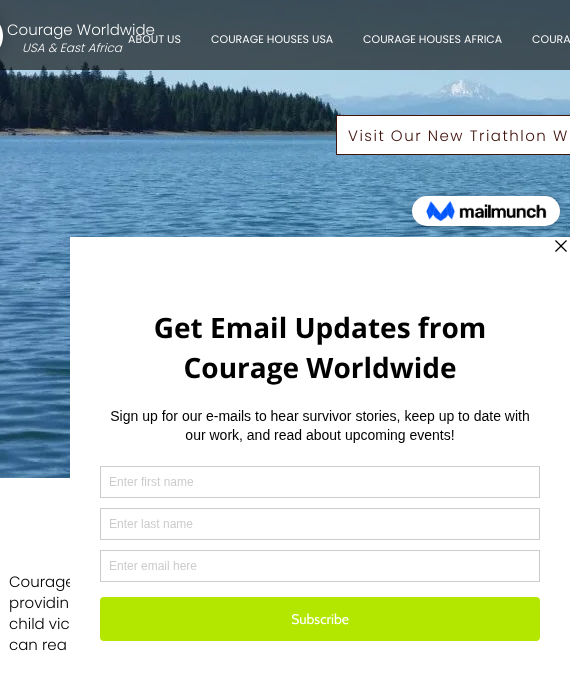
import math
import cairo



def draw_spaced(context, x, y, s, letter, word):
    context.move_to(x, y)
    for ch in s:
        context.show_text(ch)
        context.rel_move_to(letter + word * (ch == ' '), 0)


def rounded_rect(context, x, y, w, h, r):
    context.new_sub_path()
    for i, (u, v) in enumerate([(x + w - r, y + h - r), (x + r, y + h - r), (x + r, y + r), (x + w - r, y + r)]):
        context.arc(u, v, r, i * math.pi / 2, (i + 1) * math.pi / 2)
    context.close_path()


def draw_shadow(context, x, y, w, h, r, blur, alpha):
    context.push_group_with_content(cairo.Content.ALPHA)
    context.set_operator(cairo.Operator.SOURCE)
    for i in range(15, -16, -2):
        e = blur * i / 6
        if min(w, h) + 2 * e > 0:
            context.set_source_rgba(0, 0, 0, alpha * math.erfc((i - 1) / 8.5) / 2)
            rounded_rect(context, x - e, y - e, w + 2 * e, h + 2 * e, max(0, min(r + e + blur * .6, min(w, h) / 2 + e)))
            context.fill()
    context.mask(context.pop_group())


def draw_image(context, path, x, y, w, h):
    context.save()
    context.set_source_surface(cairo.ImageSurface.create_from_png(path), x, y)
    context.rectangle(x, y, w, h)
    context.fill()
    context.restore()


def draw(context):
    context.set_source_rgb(1, 1, 1)
    context.paint()
    draw_image(context, "images/1.png", 0, 0, 570, 478)
    context.set_source_rgba(0, 0, 0, 0.62)
    context.rectangle(0, 0, 157, 70)
    context.fill()
    context.set_source_rgb(0, 0, 0)
    draw_shadow(context, -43, 13, 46, 46, 23, 7, 0.2)
    rounded_rect(context, -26, 16, 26, 40, 20)
    context.set_source_rgb(1, 1, 1)
    context.set_line_width(6)
    context.stroke()
    context.set_source_rgba(0, 0, 0, 0.62)
    context.rectangle(157, 0, 413, 70)
    context.fill()
    context.set_source_rgb(1, 1, 1)
    context.rectangle(336.5, 115.5, 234, 39)
    context.fill_preserve()
    context.set_source_rgb(64 / 255, 19 / 255, 13 / 255)
    context.set_line_width(1)
    context.stroke()
    context.select_font_face("Poppins Light")
    context.set_font_size(15)
    context.set_source_rgb(1, 1, 1)
    context.move_to(7, 35)
    context.show_text("Courage Worldwide")
    context.select_font_face("Poppins Light", cairo.FontSlant.ITALIC)
    context.set_font_size(12)
    context.move_to(22, 52)
    context.show_text("USA & East Africa")
    context.select_font_face("Poppins")
    context.set_font_size(11)
    context.move_to(128, 43)
    context.show_text("ABOUT US")
    context.move_to(211, 43)
    context.show_text("COURAGE HOUSES USA")
    context.move_to(363, 43)
    context.show_text("COURAGE HOUSES AFRICA")
    context.move_to(532, 43)
    context.show_text("COURA")
    context.select_font_face("Poppins Light")
    context.set_font_size(15)
    context.set_source_rgb(64 / 255, 19 / 255, 13 / 255)
    draw_spaced(context, 348, 141, "Visit Our New Triathlon W", 1.5, 0)
    context.set_source_rgb(0, 0, 0)
    context.move_to(9, 587)
    context.show_text("Courage")
    context.move_to(9, 608)
    context.show_text("providin")
    context.move_to(9, 629)
    context.show_text("child vic")
    context.move_to(9, 650)
    context.show_text("can rea")
    draw_image(context, "images/2.png", 70, 191, 500, 491)


surface = cairo.ImageSurface(cairo.Format.RGB24, 570, 682)
context = cairo.Context(surface)
options = cairo.FontOptions()
options.set_hint_metrics(cairo.HintMetrics.OFF)
options.set_hint_style(cairo.HintStyle.NONE)
context.set_font_options(options)
context.set_miter_limit(4)
draw(context)
surface.write_to_png("out.png")
